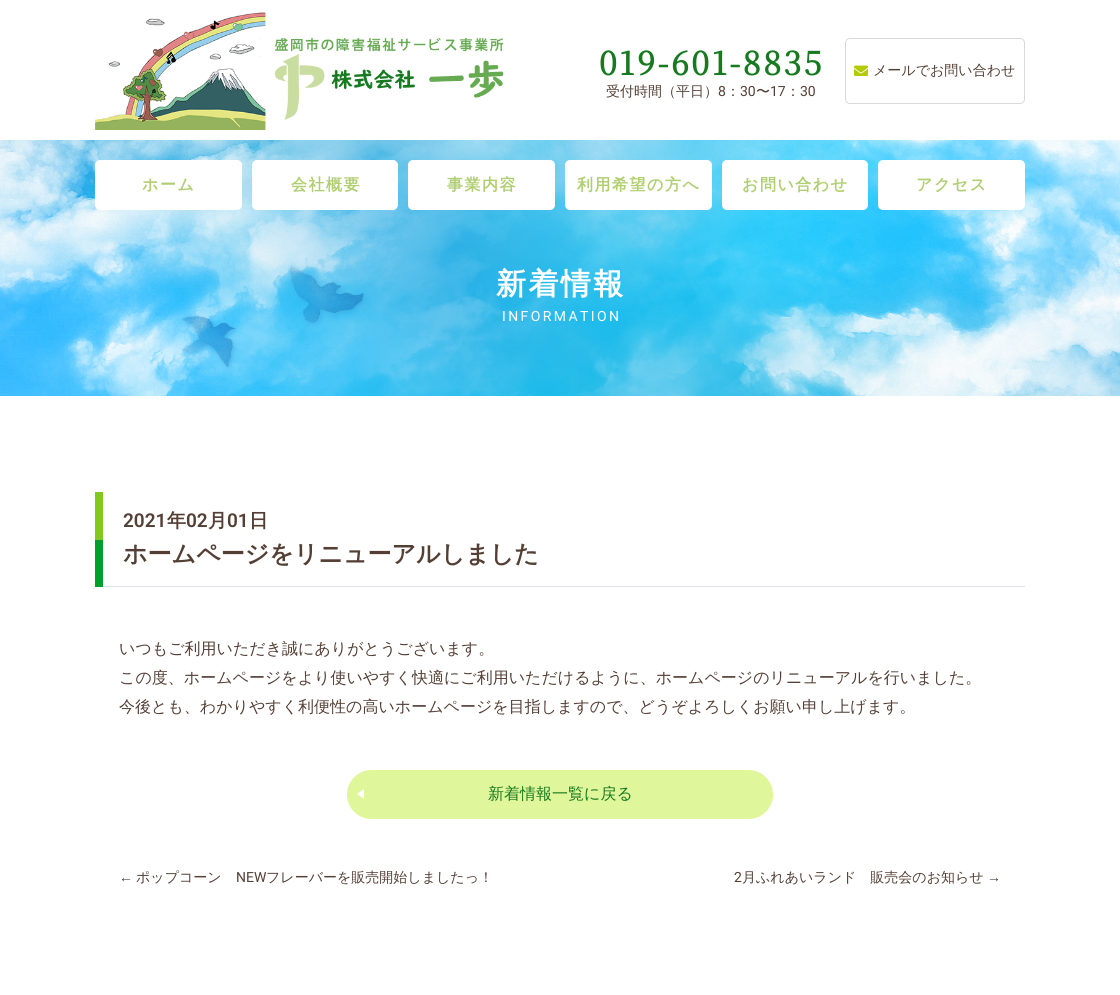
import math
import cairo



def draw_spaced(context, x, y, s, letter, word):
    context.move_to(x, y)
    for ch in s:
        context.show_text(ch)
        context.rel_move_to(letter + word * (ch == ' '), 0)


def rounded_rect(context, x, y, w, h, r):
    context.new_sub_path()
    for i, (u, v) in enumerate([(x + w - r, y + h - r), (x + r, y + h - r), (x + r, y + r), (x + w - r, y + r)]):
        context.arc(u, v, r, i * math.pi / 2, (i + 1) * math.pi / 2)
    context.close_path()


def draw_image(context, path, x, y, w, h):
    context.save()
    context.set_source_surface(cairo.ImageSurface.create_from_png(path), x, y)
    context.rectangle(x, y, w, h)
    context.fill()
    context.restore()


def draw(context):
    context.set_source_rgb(1, 1, 1)
    context.paint()
    draw_image(context, "images/1.png", 95, 12, 409, 118)
    rounded_rect(context, 845.5, 38.5, 179, 65, 4.5)
    context.set_source_rgb(217 / 255, 217 / 255, 217 / 255)
    context.set_line_width(1)
    context.stroke()
    draw_image(context, "images/2.png", 854, 65, 14, 11)
    draw_image(context, "images/3.png", 0, 140, 1120, 256)
    context.set_source_rgb(1, 1, 1)
    rounded_rect(context, 95, 160, 147, 50, 5)
    context.fill()
    rounded_rect(context, 252, 160, 146, 50, 5)
    context.fill()
    rounded_rect(context, 408, 160, 147, 50, 5)
    context.fill()
    rounded_rect(context, 565, 160, 147, 50, 5)
    context.fill()
    rounded_rect(context, 722, 160, 146, 50, 5)
    context.fill()
    rounded_rect(context, 878, 160, 147, 50, 5)
    context.fill()
    context.set_source_rgb(130 / 255, 201 / 255, 31 / 255)
    context.rectangle(95, 492, 8, 48)
    context.fill()
    context.set_source_rgb(0, 160 / 255, 46 / 255)
    context.rectangle(95, 540, 8, 47)
    context.fill()
    context.set_source_rgb(222 / 255, 226 / 255, 230 / 255)
    context.rectangle(103, 586, 922, 1)
    context.fill()
    context.set_source_rgb(224 / 255, 246 / 255, 154 / 255)
    rounded_rect(context, 347, 770, 426, 49, 24.5)
    context.fill()
    context.set_source_rgb(1, 1, 1)
    context.new_path()
    context.move_to(364, 789)
    context.line_to(364, 799)
    context.line_to(357, 794)
    context.close_path()
    context.fill()
    context.select_font_face("Noto Serif JP", cairo.FontSlant.NORMAL, cairo.FontWeight.BOLD)
    context.set_font_size(32)
    context.set_source_rgb(23 / 255, 122 / 255, 32 / 255)
    draw_spaced(context, 599, 75, "019-601-8835", 2.5, 0)
    context.select_font_face("WenQuanYi Zen Hei Medium")
    context.set_font_size(14)
    context.set_source_rgb(84 / 255, 63 / 255, 53 / 255)
    context.move_to(606, 96)
    context.show_text("受付時間（平日）")
    context.select_font_face("Roboto")
    context.move_to(718, 96)
    context.show_text("8")
    context.select_font_face("WenQuanYi Zen Hei Medium")
    context.move_to(726, 96)
    context.show_text("：")
    context.select_font_face("Roboto")
    context.move_to(740, 96)
    context.show_text("30")
    context.select_font_face("WenQuanYi Zen Hei Medium")
    context.move_to(756, 96)
    context.show_text("〜")
    context.select_font_face("Roboto")
    context.move_to(770, 96)
    context.show_text("17")
    context.select_font_face("WenQuanYi Zen Hei Medium")
    context.move_to(786, 96)
    context.show_text("：")
    context.select_font_face("Roboto")
    context.move_to(800, 96)
    context.show_text("30")
    context.select_font_face("WenQuanYi Zen Hei Medium")
    context.move_to(873, 75)
    context.show_text("メールでお問い合わせ")
    context.select_font_face("WenQuanYi Zen Hei", cairo.FontSlant.NORMAL, cairo.FontWeight.BOLD)
    context.set_font_size(16)
    context.set_source_rgb(176 / 255, 206 / 255, 114 / 255)
    draw_spaced(context, 142, 190, "ホーム", 1.5, 0)
    draw_spaced(context, 291, 190, "会社概要", 1.5, 0)
    draw_spaced(context, 447, 190, "事業内容", 1.5, 0)
    draw_spaced(context, 577, 190, "利用希望の方へ", 1.5, 0)
    draw_spaced(context, 742, 190, "お問い合わせ", 1.5, 0)
    draw_spaced(context, 916, 190, "アクセス", 1.5, 0)
    context.set_font_size(30)
    context.set_source_rgb(1, 1, 1)
    draw_spaced(context, 496, 294, "新着情報", 2.4, 0)
    context.select_font_face("Roboto")
    context.set_font_size(14)
    draw_spaced(context, 502, 321, "INFORMATION", 2.4, 0)
    context.select_font_face("Roboto SemiBold")
    context.set_font_size(19)
    context.set_source_rgb(84 / 255, 63 / 255, 53 / 255)
    context.move_to(123, 527)
    context.show_text("2021")
    context.select_font_face("WenQuanYi Zen Hei", cairo.FontSlant.NORMAL, cairo.FontWeight.BOLD)
    context.move_to(167, 527)
    context.show_text("年")
    context.select_font_face("Roboto SemiBold")
    context.move_to(186, 527)
    context.show_text("02")
    context.select_font_face("WenQuanYi Zen Hei", cairo.FontSlant.NORMAL, cairo.FontWeight.BOLD)
    context.move_to(208, 527)
    context.show_text("月")
    context.select_font_face("Roboto SemiBold")
    context.move_to(227, 527)
    context.show_text("01")
    context.select_font_face("WenQuanYi Zen Hei", cairo.FontSlant.NORMAL, cairo.FontWeight.BOLD)
    context.move_to(249, 527)
    context.show_text("日")
    context.set_font_size(24)
    context.move_to(123, 562)
    context.show_text("ホームページをリニューアルしました")
    context.select_font_face("WenQuanYi Zen Hei Medium")
    context.set_font_size(16)
    context.move_to(119, 654)
    context.show_text("いつもご利用いただき誠にありがとうございます。")
    context.move_to(119, 683)
    context.show_text("この度、ホームページをより使いやすく快適にご利用いただけるように、ホームページのリニューアルを行いました。")
    context.move_to(119, 712)
    context.show_text("今後とも、わかりやすく利便性の高いホームページを目指しますので、どうぞよろしくお願い申し上げます。")
    context.set_source_rgb(23 / 255, 122 / 255, 32 / 255)
    context.move_to(488, 799)
    context.show_text("新着情報一覧に戻る")
    context.select_font_face("Liberation Sans")
    context.set_font_size(14)
    context.set_source_rgb(84 / 255, 63 / 255, 53 / 255)
    context.move_to(119, 882)
    context.show_text("←")
    context.select_font_face("WenQuanYi Zen Hei Medium")
    context.move_to(136, 882)
    context.show_text("ポップコーン")
    context.select_font_face("Roboto")
    context.move_to(236, 882)
    context.show_text("NEW")
    context.select_font_face("WenQuanYi Zen Hei Medium")
    context.move_to(266, 882)
    context.show_text("フレーバーを販売開始しましたっ！")
    context.select_font_face("Roboto")
    context.move_to(734, 882)
    context.show_text("2")
    context.select_font_face("WenQuanYi Zen Hei Medium")
    context.move_to(742, 882)
    context.show_text("月ふれあいランド　販売会のお知らせ")
    context.select_font_face("Liberation Sans")
    context.move_to(987, 882)
    context.show_text("→")


surface = cairo.ImageSurface(cairo.Format.RGB24, 1120, 995)
context = cairo.Context(surface)
options = cairo.FontOptions()
options.set_hint_metrics(cairo.HintMetrics.OFF)
options.set_hint_style(cairo.HintStyle.NONE)
context.set_font_options(options)
context.set_miter_limit(4)
draw(context)
surface.write_to_png("out.png")
